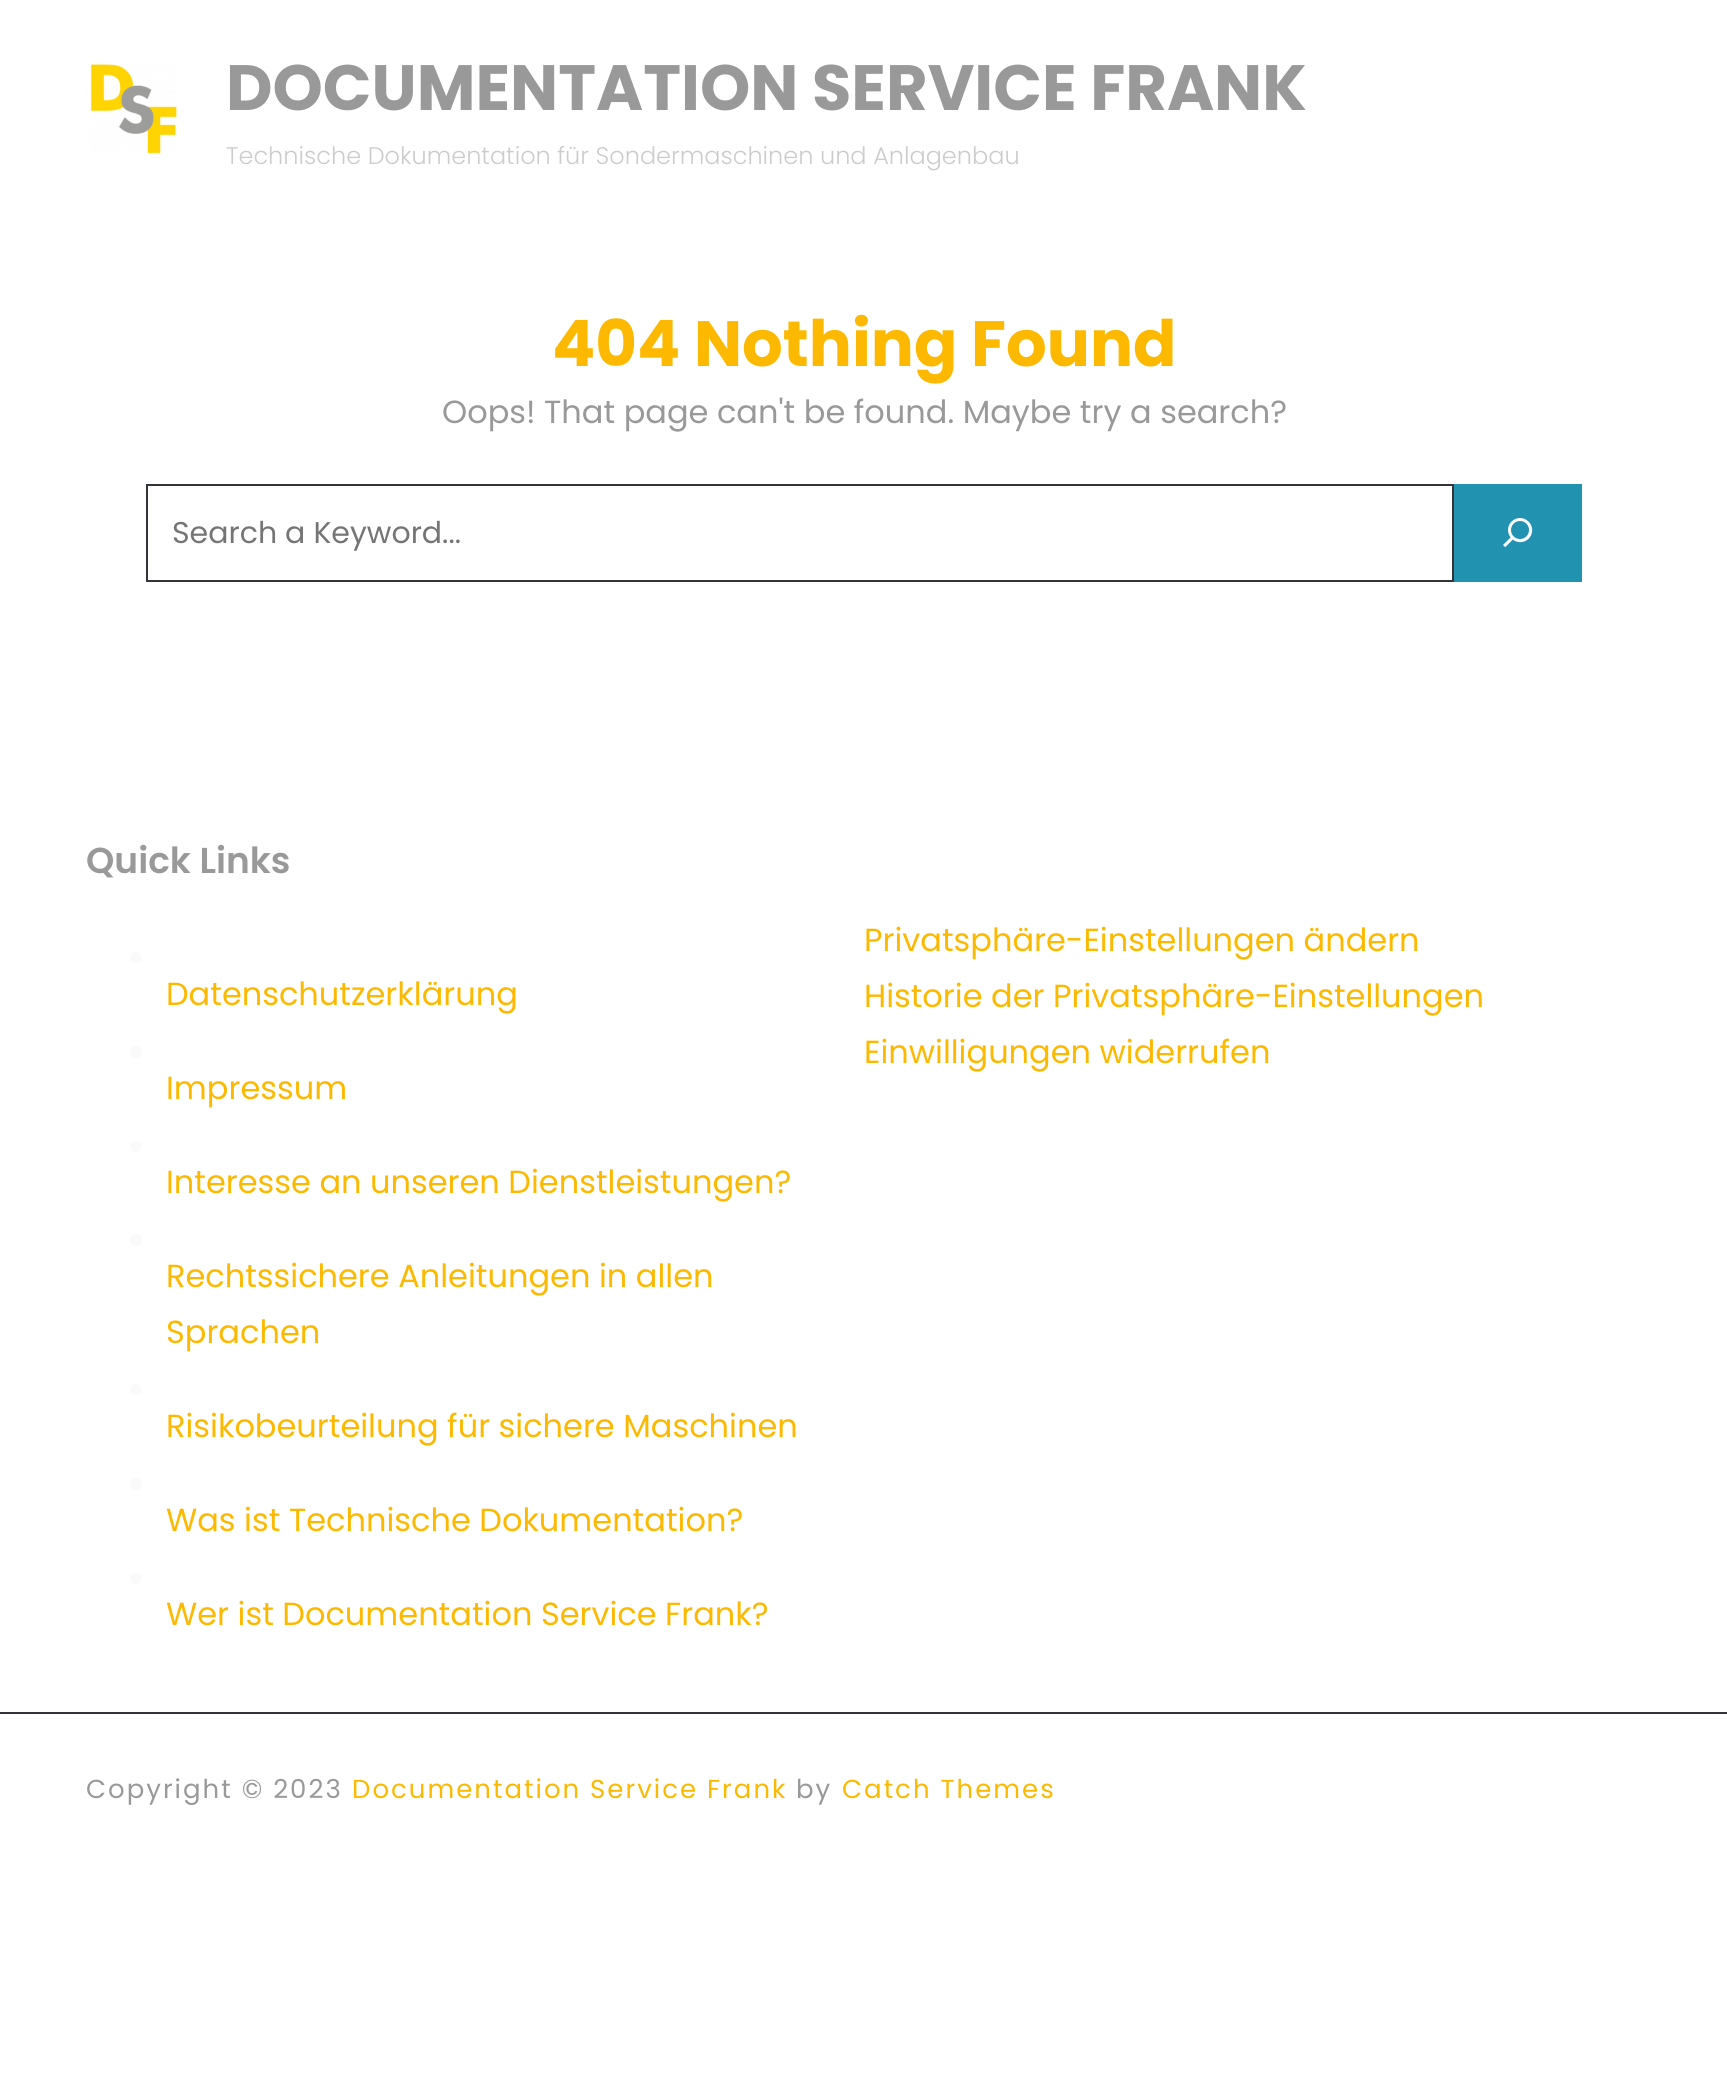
import math
import cairo



def draw_spaced(context, x, y, s, letter, word):
    context.move_to(x, y)
    for ch in s:
        context.show_text(ch)
        context.rel_move_to(letter + word * (ch == ' '), 0)


def draw_image(context, path, x, y, w, h):
    context.save()
    context.set_source_surface(cairo.ImageSurface.create_from_png(path), x, y)
    context.rectangle(x, y, w, h)
    context.fill()
    context.restore()


def draw(context):
    context.set_source_rgb(1, 1, 1)
    context.paint()
    draw_image(context, "images/1.png", 90, 64, 87, 90)
    context.rectangle(147, 485, 1306, 96)
    context.set_source_rgb(50 / 255, 52 / 255, 56 / 255)
    context.stroke()
    context.set_source_rgb(34 / 255, 146 / 255, 177 / 255)
    context.rectangle(1454, 484, 128, 98)
    context.fill()
    draw_image(context, "images/2.png", 1503, 518, 30, 30)
    context.set_source_rgb(250 / 255, 250 / 255, 250 / 255)
    context.arc(136, 958, 6, 0, 2 * math.pi)
    context.fill()
    context.arc(136, 1052, 6, 0, 2 * math.pi)
    context.fill()
    context.arc(136, 1146, 6, 0, 2 * math.pi)
    context.fill()
    context.arc(136, 1240, 6, 0, 2 * math.pi)
    context.fill()
    context.arc(136, 1390, 6, 0, 2 * math.pi)
    context.fill()
    context.arc(136, 1484, 6, 0, 2 * math.pi)
    context.fill()
    context.arc(136, 1578, 6, 0, 2 * math.pi)
    context.fill()
    context.set_source_rgb(50 / 255, 52 / 255, 56 / 255)
    context.rectangle(0, 1712, 1727, 2)
    context.fill()
    context.select_font_face("Poppins", cairo.FontSlant.NORMAL, cairo.FontWeight.BOLD)
    context.set_font_size(64)
    context.set_source_rgb(153 / 255, 153 / 255, 153 / 255)
    context.move_to(226, 110)
    context.show_text("DOCUMENTATION SERVICE FRANK")
    context.select_font_face("Poppins Light")
    context.set_font_size(24)
    context.set_source_rgb(204 / 255, 204 / 255, 204 / 255)
    context.move_to(226, 164)
    context.show_text("Technische Dokumentation für Sondermaschinen und Anlagenbau")
    context.select_font_face("Poppins", cairo.FontSlant.NORMAL, cairo.FontWeight.BOLD)
    context.set_font_size(64)
    context.set_source_rgb(252 / 255, 185 / 255, 0)
    context.move_to(552, 366)
    context.show_text("404 Nothing Found")
    context.select_font_face("Poppins")
    context.set_font_size(32)
    context.set_source_rgb(153 / 255, 153 / 255, 153 / 255)
    context.move_to(442, 423)
    context.show_text("Oops! That page can't be found. Maybe try a search?")
    context.set_font_size(30)
    context.set_source_rgb(117 / 255, 117 / 255, 117 / 255)
    context.move_to(172, 543)
    context.show_text("Search a Keyword...")
    context.select_font_face("Poppins SemiBold")
    context.set_font_size(36)
    context.set_source_rgb(153 / 255, 153 / 255, 153 / 255)
    context.move_to(86, 873)
    context.show_text("Quick Links")
    context.select_font_face("Poppins")
    context.set_font_size(32)
    context.set_source_rgb(252 / 255, 185 / 255, 0)
    context.move_to(166, 1005)
    context.show_text("Datenschutzerklärung")
    context.move_to(166, 1099)
    context.show_text("Impressum")
    context.move_to(166, 1193)
    context.show_text("Interesse an unseren Dienstleistungen?")
    context.move_to(166, 1287)
    context.show_text("Rechtssichere Anleitungen in allen")
    context.move_to(166, 1343)
    context.show_text("Sprachen")
    context.move_to(166, 1437)
    context.show_text("Risikobeurteilung für sichere Maschinen")
    context.move_to(166, 1531)
    context.show_text("Was ist Technische Dokumentation?")
    context.move_to(166, 1625)
    context.show_text("Wer ist Documentation Service Frank?")
    context.move_to(864, 951)
    context.show_text("Privatsphäre-Einstellungen ändern")
    context.move_to(864, 1007)
    context.show_text("Historie der Privatsphäre-Einstellungen")
    context.move_to(864, 1063)
    context.show_text("Einwilligungen widerrufen")
    context.set_font_size(26)
    context.set_source_rgb(153 / 255, 153 / 255, 153 / 255)
    draw_spaced(context, 86, 1798, "Copyright © 2023", 2, 0)
    context.set_source_rgb(252 / 255, 185 / 255, 0)
    draw_spaced(context, 352, 1798, "Documentation Service Frank", 2, 0)
    context.set_source_rgb(153 / 255, 153 / 255, 153 / 255)
    draw_spaced(context, 796, 1798, "by", 2, 0)
    context.set_source_rgb(252 / 255, 185 / 255, 0)
    draw_spaced(context, 842, 1798, "Catch Themes", 2, 0)


surface = cairo.ImageSurface(cairo.Format.RGB24, 1727, 2091)
context = cairo.Context(surface)
options = cairo.FontOptions()
options.set_hint_metrics(cairo.HintMetrics.OFF)
options.set_hint_style(cairo.HintStyle.NONE)
context.set_font_options(options)
context.set_miter_limit(4)
draw(context)
surface.write_to_png("out.png")
